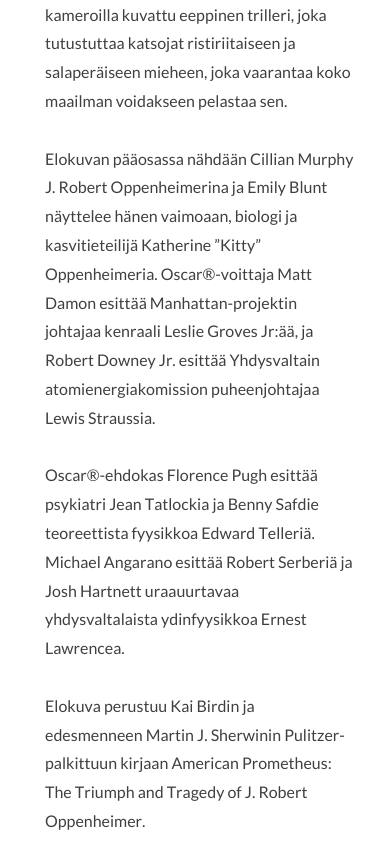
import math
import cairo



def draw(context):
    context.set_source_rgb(1, 1, 1)
    context.paint()
    context.select_font_face("Lato")
    context.set_font_size(16)
    context.set_source_rgb(63 / 255, 63 / 255, 63 / 255)
    context.move_to(45, 21)
    context.show_text("kameroilla kuvattu eeppinen trilleri, joka")
    context.move_to(45, 49)
    context.show_text("tutustuttaa katsojat ristiriitaiseen ja")
    context.move_to(45, 78)
    context.show_text("salaperäiseen mieheen, joka vaarantaa koko")
    context.move_to(45, 107)
    context.show_text("maailman voidakseen pelastaa sen.")
    context.move_to(45, 165)
    context.show_text("Elokuvan pääosassa nähdään Cillian Murphy")
    context.move_to(45, 193)
    context.show_text("J. Robert Oppenheimerina ja Emily Blunt")
    context.move_to(45, 222)
    context.show_text("näyttelee hänen vaimoaan, biologi ja")
    context.move_to(45, 251)
    context.show_text("kasvitieteilijä Katherine ”Kitty”")
    context.move_to(45, 280)
    context.show_text("Oppenheimeria. Oscar®-voittaja Matt")
    context.move_to(45, 309)
    context.show_text("Damon esittää Manhattan-projektin")
    context.move_to(45, 337)
    context.show_text("johtajaa kenraali Leslie Groves Jr:ää, ja")
    context.move_to(45, 366)
    context.show_text("Robert Downey Jr. esittää Yhdysvaltain")
    context.move_to(45, 395)
    context.show_text("atomienergiakomission puheenjohtajaa")
    context.move_to(45, 424)
    context.show_text("Lewis Straussia.")
    context.move_to(45, 481)
    context.show_text("Oscar®-ehdokas Florence Pugh esittää")
    context.move_to(45, 510)
    context.show_text("psykiatri Jean Tatlockia ja Benny Safdie")
    context.move_to(45, 539)
    context.show_text("teoreettista fyysikkoa Edward Telleriä.")
    context.move_to(45, 568)
    context.show_text("Michael Angarano esittää Robert Serberiä ja")
    context.move_to(45, 597)
    context.show_text("Josh Hartnett uraauurtavaa")
    context.move_to(45, 625)
    context.show_text("yhdysvaltalaista ydinfyysikkoa Ernest")
    context.move_to(45, 654)
    context.show_text("Lawrencea.")
    context.move_to(45, 712)
    context.show_text("Elokuva perustuu Kai Birdin ja")
    context.move_to(45, 741)
    context.show_text("edesmenneen Martin J. Sherwinin Pulitzer-")
    context.move_to(45, 769)
    context.show_text("palkittuun kirjaan American Prometheus:")
    context.move_to(45, 798)
    context.show_text("The Triumph and Tragedy of J. Robert")
    context.move_to(45, 827)
    context.show_text("Oppenheimer.")


surface = cairo.ImageSurface(cairo.Format.RGB24, 384, 858)
context = cairo.Context(surface)
options = cairo.FontOptions()
options.set_hint_metrics(cairo.HintMetrics.OFF)
options.set_hint_style(cairo.HintStyle.NONE)
context.set_font_options(options)
context.set_miter_limit(4)
draw(context)
surface.write_to_png("out.png")
